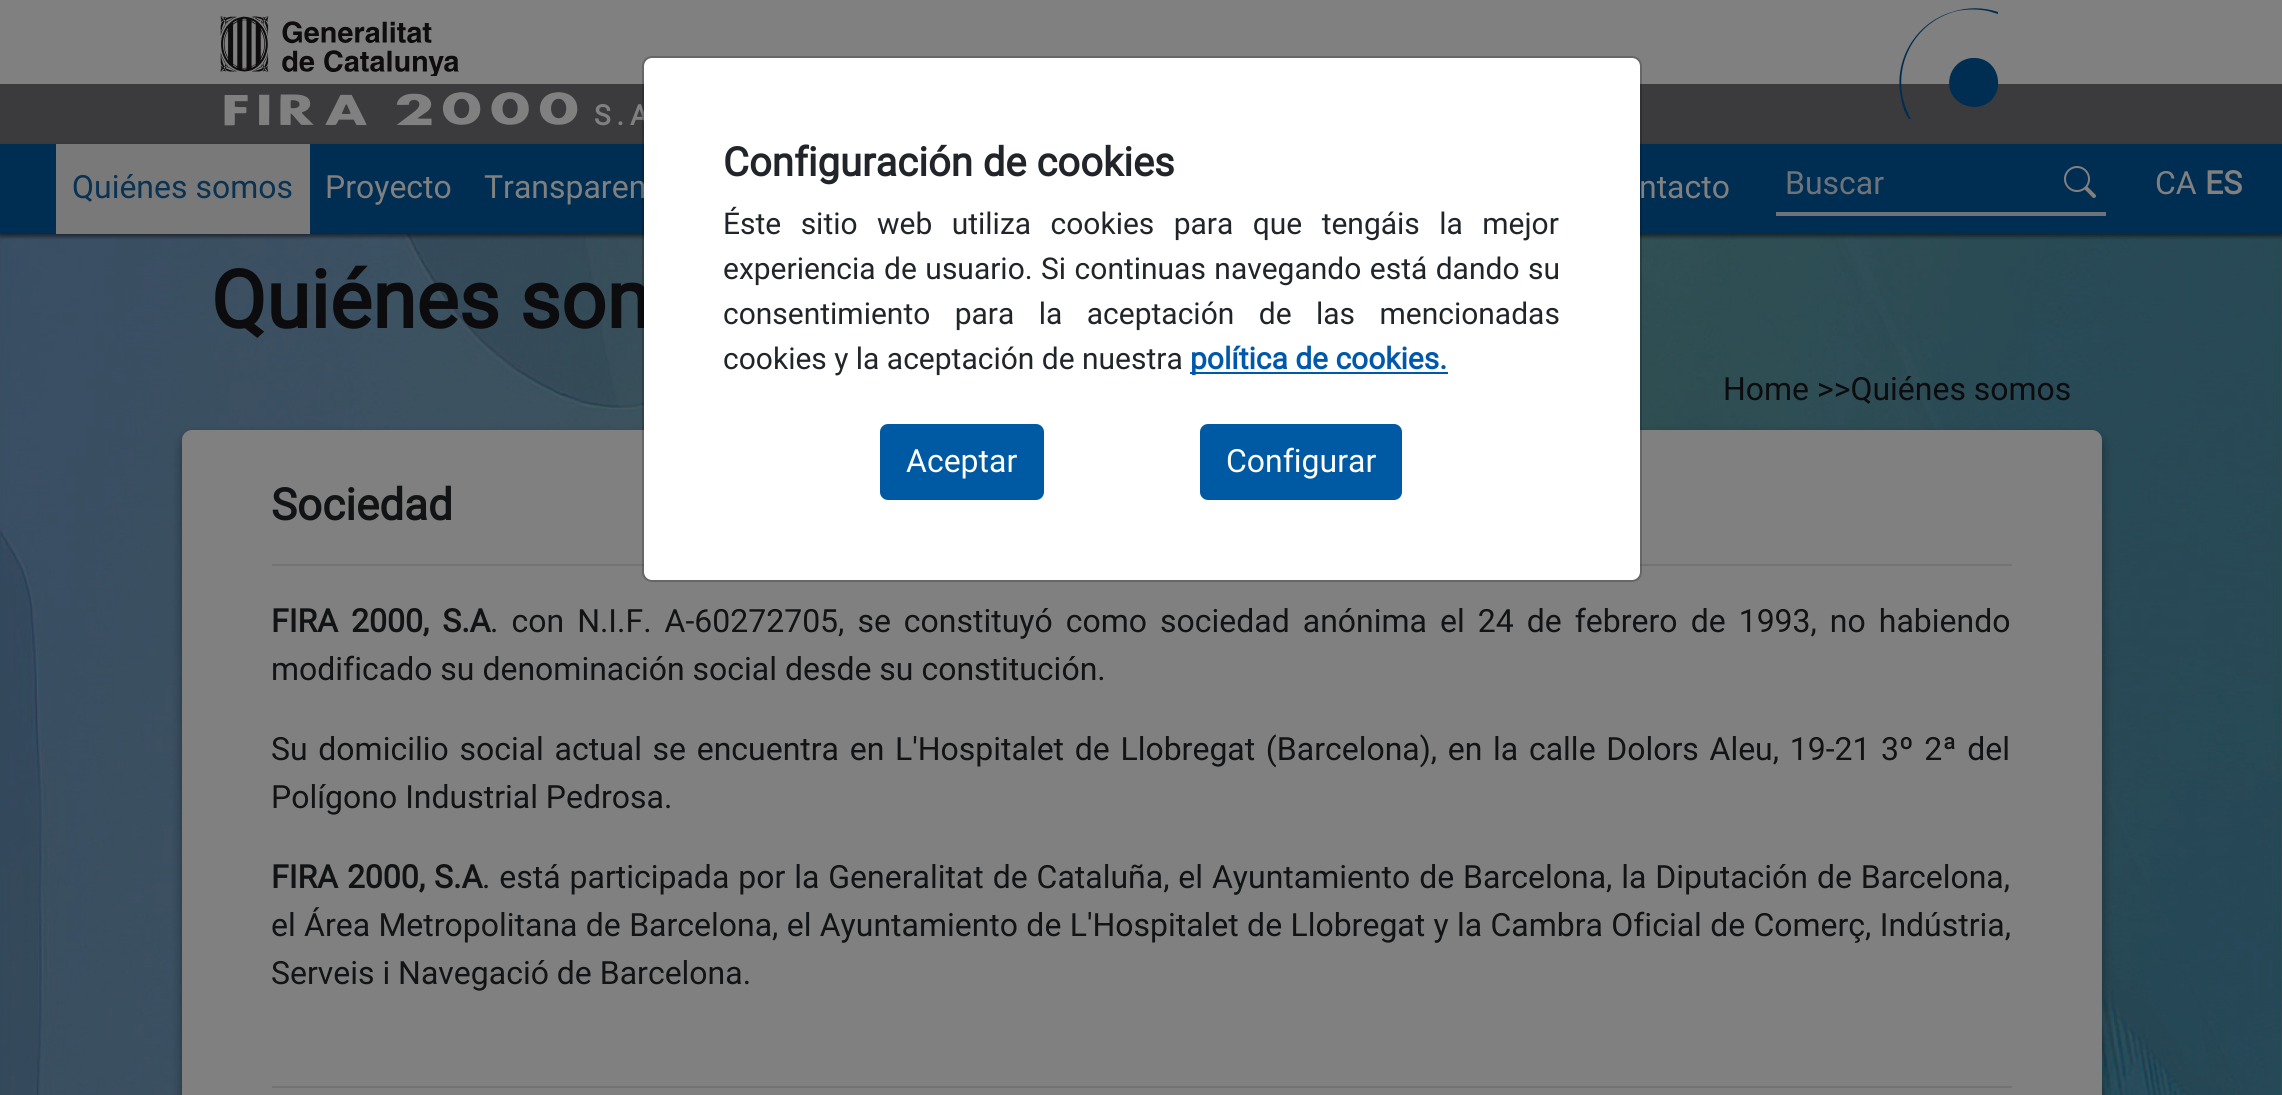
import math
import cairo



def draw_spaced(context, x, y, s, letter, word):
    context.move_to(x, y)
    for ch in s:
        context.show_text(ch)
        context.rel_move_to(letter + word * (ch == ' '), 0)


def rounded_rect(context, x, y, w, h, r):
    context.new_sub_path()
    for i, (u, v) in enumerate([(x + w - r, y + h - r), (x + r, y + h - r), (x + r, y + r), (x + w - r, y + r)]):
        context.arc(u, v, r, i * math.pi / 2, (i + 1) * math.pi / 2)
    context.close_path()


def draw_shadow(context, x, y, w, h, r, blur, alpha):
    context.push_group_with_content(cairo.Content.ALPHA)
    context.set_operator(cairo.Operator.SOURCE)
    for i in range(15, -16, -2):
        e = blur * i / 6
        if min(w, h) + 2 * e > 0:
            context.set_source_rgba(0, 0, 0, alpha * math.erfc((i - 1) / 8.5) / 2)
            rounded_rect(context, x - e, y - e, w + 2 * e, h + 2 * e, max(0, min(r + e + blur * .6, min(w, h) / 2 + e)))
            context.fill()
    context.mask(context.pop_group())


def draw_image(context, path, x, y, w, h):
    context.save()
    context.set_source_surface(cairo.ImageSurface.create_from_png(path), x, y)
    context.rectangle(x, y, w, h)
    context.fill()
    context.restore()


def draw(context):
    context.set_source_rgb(1, 1, 1)
    context.paint()
    draw_image(context, "images/1.png", 0, 234, 2282, 861)
    context.set_source_rgb(0, 0, 0)
    draw_shadow(context, 0, 2, 2282, 234, 0, 2, 0.24)
    draw_shadow(context, 0, 2, 2282, 234, 0, 3, 0.12)
    context.set_source_rgb(128 / 255, 128 / 255, 128 / 255)
    context.rectangle(0, 0, 2282, 84)
    context.fill()
    draw_image(context, "images/2.png", 220, 16, 239, 60)
    context.set_source_rgb(59 / 255, 59 / 255, 61 / 255)
    context.rectangle(0, 84, 2282, 60)
    context.fill()
    context.set_source_rgb(0, 45 / 255, 82 / 255)
    context.new_path()
    context.move_to(1952, 12)
    context.curve_to(1967, 7, 1983, 7, 1998, 12)
    context.line_to(1998, 14)
    context.line_to(1988, 11)
    context.curve_to(1978, 9, 1967, 9, 1957, 11)
    context.curve_to(1909, 23, 1887, 77, 1911, 119)
    context.line_to(1909, 119)
    context.curve_to(1905, 114, 1902, 105, 1901, 98)
    context.curve_to(1893, 61, 1915, 23, 1952, 12)
    context.close_path()
    context.fill()
    context.new_path()
    context.move_to(1972, 58)
    context.curve_to(2004, 56, 2008, 104, 1976, 107)
    context.curve_to(1971, 107, 1966, 106, 1962, 104)
    context.curve_to(1940, 92, 1948, 60, 1972, 58)
    context.close_path()
    context.fill()
    context.set_source_rgb(0, 0, 0)
    draw_shadow(context, 0, 146, 2282, 90, 0, 2, 0.24)
    draw_shadow(context, 0, 146, 2282, 90, 0, 3, 0.12)
    context.set_source_rgb(0, 45 / 255, 82 / 255)
    context.rectangle(0, 144, 2282, 90)
    context.fill()
    context.set_source_rgb(121 / 255, 121 / 255, 121 / 255)
    context.rectangle(56, 144, 254, 90)
    context.fill()
    context.set_source_rgb(109 / 255, 115 / 255, 121 / 255)
    context.rectangle(1776, 212, 330, 4)
    context.fill()
    draw_image(context, "images/3.png", 2064, 166, 32, 32)
    context.set_source_rgb(0, 0, 0)
    draw_shadow(context, 182, 436, 1920, 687, 10, 6, 0.23)
    draw_shadow(context, 182, 436, 1920, 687, 10, 6, 0.16)
    context.set_source_rgb(128 / 255, 128 / 255, 128 / 255)
    context.new_path()
    context.move_to(192, 430)
    context.line_to(2092, 430)
    context.curve_to(2097.5, 430, 2102, 434.5, 2102, 440)
    context.line_to(2102, 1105)
    context.line_to(182, 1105)
    context.line_to(182, 440)
    context.curve_to(182, 434.5, 186.5, 430, 192, 430)
    context.close_path()
    context.fill()
    context.set_source_rgb(115 / 255, 115 / 255, 115 / 255)
    context.rectangle(272, 564, 1740, 2)
    context.fill()
    context.rectangle(272, 1086, 1740, 2)
    context.fill()
    context.select_font_face("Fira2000")
    context.set_font_size(52)
    context.set_source_rgb(128 / 255, 128 / 255, 128 / 255)
    draw_spaced(context, 222, 131, "Fira 2000", 6, 0)
    context.select_font_face("Roboto", cairo.FontSlant.NORMAL, cairo.FontWeight.BOLD)
    context.set_font_size(28)
    draw_spaced(context, 594, 125, "S.A", 6, 0)
    context.select_font_face("Roboto")
    context.set_font_size(32)
    context.set_source_rgb(10 / 255, 50 / 255, 83 / 255)
    context.move_to(72, 198)
    context.show_text("Quiénes somos")
    context.set_source_rgb(128 / 255, 128 / 255, 128 / 255)
    context.move_to(325, 198)
    context.show_text("Proyecto")
    context.move_to(484, 198)
    context.show_text("Transparen")
    context.move_to(1639, 198)
    context.show_text("ntacto")
    context.set_source_rgb(109 / 255, 115 / 255, 121 / 255)
    context.move_to(1785, 194)
    context.show_text("Buscar")
    context.set_source_rgb(128 / 255, 128 / 255, 128 / 255)
    context.move_to(2155, 194)
    context.show_text("CA")
    context.select_font_face("Roboto", cairo.FontSlant.NORMAL, cairo.FontWeight.BOLD)
    context.move_to(2205, 194)
    context.show_text("ES")
    context.set_font_size(80)
    context.set_source_rgb(12 / 255, 12 / 255, 14 / 255)
    context.move_to(211, 328)
    context.show_text("Quiénes som")
    context.set_source_rgb(1, 1, 1)
    rounded_rect(context, 644, 58, 996, 522, 8)
    context.fill()
    rounded_rect(context, 643, 57, 998, 524, 9)
    context.set_source_rgba(0, 0, 0, 0.2)
    context.stroke()
    context.set_source_rgb(0, 89 / 255, 163 / 255)
    rounded_rect(context, 1200, 424, 202, 76, 8)
    context.fill()
    context.select_font_face("Roboto")
    context.set_font_size(32)
    context.set_source_rgb(1, 1, 1)
    context.move_to(1226, 472)
    context.show_text("Configurar")
    context.set_source_rgb(0, 89 / 255, 163 / 255)
    rounded_rect(context, 880, 424, 164, 76, 8)
    context.fill()
    context.set_source_rgb(1, 1, 1)
    context.move_to(906, 472)
    context.show_text("Aceptar")
    context.set_source_rgb(0, 88 / 255, 173 / 255)
    context.rectangle(1190, 372, 258, 2)
    context.fill()
    context.select_font_face("Roboto", cairo.FontSlant.NORMAL, cairo.FontWeight.BOLD)
    context.set_font_size(30)
    context.move_to(1190, 369)
    context.show_text("política de cookies.")
    context.select_font_face("Roboto")
    context.set_source_rgb(33 / 255, 37 / 255, 41 / 255)
    context.move_to(723, 369)
    context.show_text("cookies y la aceptación de nuestra")
    draw_spaced(context, 723, 324, "consentimiento para la aceptación de las mencionadas", 0, 17)
    draw_spaced(context, 723, 279, "experiencia de usuario. Si continuas navegando está dando su", 0, 1)
    draw_spaced(context, 723, 234, "Éste sitio web utiliza cookies para que tengáis la mejor", 0, 12)
    context.select_font_face("Roboto", cairo.FontSlant.NORMAL, cairo.FontWeight.BOLD)
    context.set_font_size(40)
    context.move_to(723, 176)
    context.show_text("Configuración de cookies")
    context.select_font_face("Roboto")
    context.set_font_size(32)
    context.set_source_rgb(12 / 255, 12 / 255, 14 / 255)
    context.move_to(1723, 400)
    context.show_text("Home >>Quiénes somos")
    context.select_font_face("Roboto", cairo.FontSlant.NORMAL, cairo.FontWeight.BOLD)
    context.set_font_size(44)
    context.set_source_rgb(17 / 255, 19 / 255, 21 / 255)
    context.move_to(271, 520)
    context.show_text("Sociedad")
    context.set_font_size(32)
    draw_spaced(context, 271, 632, "FIRA 2000, S.A", 0, 5.1)
    context.select_font_face("Roboto")
    draw_spaced(context, 490, 632, ". con N.I.F. A-60272705, se constituyó como sociedad anónima el 24 de febrero de 1993, no habiendo", 0, 5.1)
    context.move_to(271, 680)
    context.show_text("modificado su denominación social desde su constitución.")
    draw_spaced(context, 271, 760, "Su domicilio social actual se encuentra en L'Hospitalet de Llobregat (Barcelona), en la calle Dolors Aleu, 19-21 3º 2ª del", 0, 2.75)
    context.move_to(271, 808)
    context.show_text("Polígono Industrial Pedrosa.")
    context.select_font_face("Roboto", cairo.FontSlant.NORMAL, cairo.FontWeight.BOLD)
    draw_spaced(context, 271, 888, "FIRA 2000, S.A", 0, 1)
    context.select_font_face("Roboto")
    draw_spaced(context, 482, 888, ". está participada por la Generalitat de Cataluña, el Ayuntamiento de Barcelona, la Diputación de Barcelona,", 0, 1)
    draw_spaced(context, 271, 936, "el Área Metropolitana de Barcelona, el Ayuntamiento de L'Hospitalet de Llobregat y la Cambra Oficial de Comerç, Indústria,", 0, 0.4)
    context.move_to(271, 984)
    context.show_text("Serveis i Navegació de Barcelona.")


surface = cairo.ImageSurface(cairo.Format.RGB24, 2282, 1095)
context = cairo.Context(surface)
options = cairo.FontOptions()
options.set_hint_metrics(cairo.HintMetrics.OFF)
options.set_hint_style(cairo.HintStyle.NONE)
context.set_font_options(options)
context.set_miter_limit(4)
draw(context)
surface.write_to_png("out.png")
